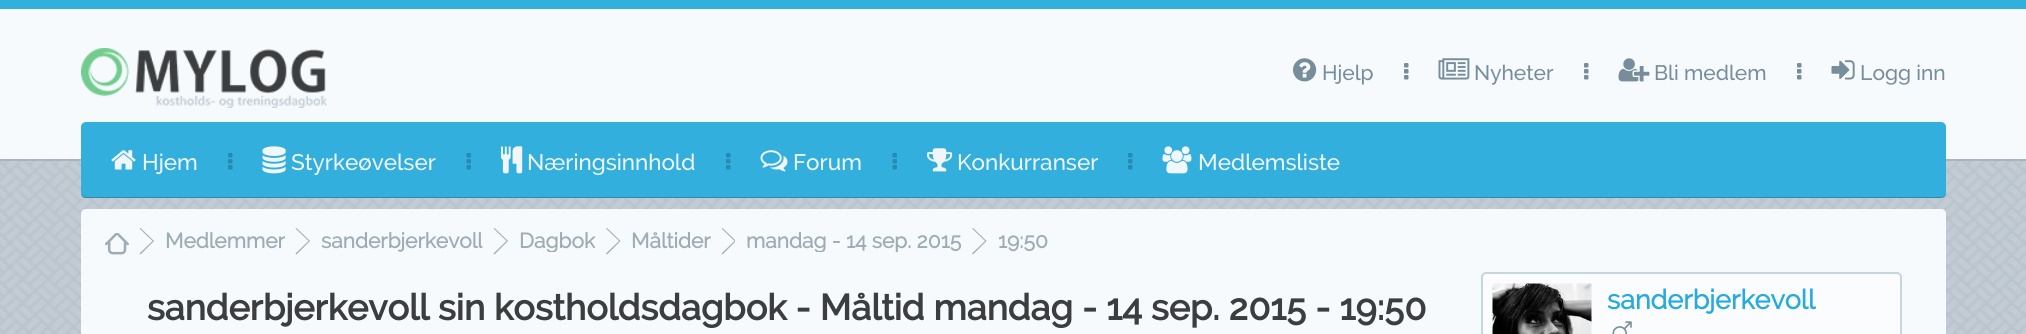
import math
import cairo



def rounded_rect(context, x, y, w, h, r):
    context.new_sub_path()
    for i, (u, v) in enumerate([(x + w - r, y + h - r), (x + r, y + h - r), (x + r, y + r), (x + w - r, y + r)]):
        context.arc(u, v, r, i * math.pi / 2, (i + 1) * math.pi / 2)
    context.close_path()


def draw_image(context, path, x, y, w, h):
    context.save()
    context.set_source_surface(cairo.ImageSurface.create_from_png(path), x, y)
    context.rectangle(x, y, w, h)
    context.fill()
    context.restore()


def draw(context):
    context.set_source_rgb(1, 1, 1)
    context.paint()
    draw_image(context, "images/1.png", 0, 159, 2026, 175)
    context.set_source_rgba(159 / 255, 172 / 255, 183 / 255, 0.7)
    context.new_path()
    context.move_to(0, 159)
    context.line_to(0, 161)
    context.line_to(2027, 161)
    context.line_to(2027, 2)
    context.line_to(2026, 2)
    context.line_to(2026, 159)
    context.close_path()
    context.fill()
    context.set_source_rgb(246 / 255, 250 / 255, 252 / 255)
    context.rectangle(0, 9, 2026, 150)
    context.fill()
    context.set_source_rgb(51 / 255, 175 / 255, 222 / 255)
    context.rectangle(0, 0, 2026, 9)
    context.fill()
    draw_image(context, "images/2.png", 81, 48, 246, 60)
    draw_image(context, "images/3.png", 1293, 58, 24, 24)
    draw_image(context, "images/4.png", 1404, 63, 5, 17)
    draw_image(context, "images/5.png", 1438, 58, 32, 22)
    draw_image(context, "images/4.png", 1584, 63, 5, 17)
    draw_image(context, "images/6.png", 1618, 58, 32, 24)
    draw_image(context, "images/4.png", 1797, 63, 5, 17)
    draw_image(context, "images/7.png", 1831, 60, 24, 20)
    context.set_source_rgb(44 / 255, 140 / 255, 176 / 255)
    context.new_path()
    context.move_to(81, 192)
    context.line_to(81, 193)
    context.curve_to(81, 196, 83, 198, 86, 198)
    context.line_to(1941, 198)
    context.curve_to(1944, 198, 1946, 196, 1946, 193)
    context.line_to(1946, 128)
    context.line_to(1945, 126)
    context.line_to(1946, 192)
    context.curve_to(1946, 194, 1943, 196, 1941, 196)
    context.line_to(86, 196)
    context.curve_to(83, 196, 81, 194, 81, 192)
    context.close_path()
    context.fill()
    context.set_source_rgb(51 / 255, 175 / 255, 222 / 255)
    rounded_rect(context, 81, 122, 1865, 75, 5)
    context.fill()
    draw_image(context, "images/8.png", 111, 150, 25, 20)
    draw_image(context, "images/9.png", 228, 153, 5, 17)
    draw_image(context, "images/10.png", 262, 146, 24, 28)
    draw_image(context, "images/11.png", 466, 153, 5, 17)
    draw_image(context, "images/12.png", 501, 146, 22, 28)
    draw_image(context, "images/9.png", 726, 153, 5, 17)
    draw_image(context, "images/13.png", 760, 150, 28, 22)
    draw_image(context, "images/11.png", 892, 153, 5, 17)
    draw_image(context, "images/14.png", 927, 148, 26, 24)
    draw_image(context, "images/9.png", 1128, 153, 5, 17)
    draw_image(context, "images/15.png", 1162, 146, 30, 28)
    context.set_source_rgb(246 / 255, 250 / 255, 252 / 255)
    context.new_path()
    context.move_to(86, 209)
    context.line_to(1941, 209)
    context.curve_to(1944, 209, 1946, 211, 1946, 214)
    context.line_to(1946, 261)
    context.line_to(81, 261)
    context.line_to(81, 214)
    context.curve_to(81, 211, 83, 209, 86, 209)
    context.close_path()
    context.fill()
    draw_image(context, "images/16.png", 105, 233, 24, 22)
    context.set_source_rgb(158 / 255, 173 / 255, 181 / 255)
    context.new_path()
    context.move_to(139.5, 253.5)
    context.line_to(152.5, 241)
    context.line_to(139.5, 228.5)
    context.line_to(140.5, 228)
    context.line_to(154, 241)
    context.line_to(140.5, 254.5)
    context.close_path()
    context.fill()
    context.new_path()
    context.move_to(295.5, 253.5)
    context.line_to(308.5, 241)
    context.line_to(295.5, 228.5)
    context.line_to(296.5, 228)
    context.line_to(310, 241)
    context.line_to(296.5, 254.5)
    context.close_path()
    context.fill()
    context.new_path()
    context.move_to(493.5, 253.5)
    context.line_to(506.5, 241)
    context.line_to(493.5, 228.5)
    context.line_to(494.5, 228)
    context.line_to(508, 241)
    context.line_to(494.5, 254.5)
    context.close_path()
    context.fill()
    context.new_path()
    context.move_to(606, 253.5)
    context.line_to(619, 241)
    context.line_to(606, 228.5)
    context.line_to(607, 228)
    context.line_to(620.5, 241)
    context.line_to(607, 254.5)
    context.close_path()
    context.fill()
    context.save()
    context.rectangle(722, 228, 13, 27)
    context.clip()
    context.new_path()
    context.move_to(721.5, 253.5)
    context.line_to(734.5, 241)
    context.line_to(721.5, 228.5)
    context.line_to(722.5, 228)
    context.line_to(736, 241)
    context.line_to(722.5, 254.5)
    context.close_path()
    context.fill()
    context.restore()
    context.new_path()
    context.move_to(972, 253.5)
    context.line_to(985, 241)
    context.line_to(972, 228.5)
    context.line_to(973, 228)
    context.line_to(986.5, 241)
    context.line_to(973, 254.5)
    context.close_path()
    context.fill()
    context.set_source_rgb(246 / 255, 250 / 255, 252 / 255)
    context.rectangle(81, 261, 1865, 73)
    context.fill()
    context.set_source_rgb(251 / 255, 252 / 255, 253 / 255)
    rounded_rect(context, 1482, 273, 419, 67, 4)
    context.fill_preserve()
    context.set_source_rgb(198 / 255, 214 / 255, 223 / 255)
    context.stroke()
    draw_image(context, "images/17.png", 1492, 283, 100, 51)
    draw_image(context, "images/18.png", 1612, 321, 20, 13)
    context.select_font_face("Raleway Medium")
    context.set_font_size(21)
    context.set_source_rgb(119 / 255, 141 / 255, 155 / 255)
    context.move_to(1322, 80)
    context.show_text("Hjelp")
    context.move_to(1474, 80)
    context.show_text("Nyheter")
    context.move_to(1654, 80)
    context.show_text("Bli medlem")
    context.move_to(1860, 80)
    context.show_text("Logg inn")
    context.set_font_size(22.5)
    context.set_source_rgb(241 / 255, 246 / 255, 249 / 255)
    context.move_to(142, 170)
    context.show_text("Hjem")
    context.move_to(291, 170)
    context.show_text("Styrkeøvelser")
    context.move_to(527, 170)
    context.show_text("Næringsinnhold")
    context.move_to(793, 170)
    context.show_text("Forum")
    context.move_to(957, 170)
    context.show_text("Konkurranser")
    context.move_to(1198, 170)
    context.show_text("Medlemsliste")
    context.select_font_face("Raleway", cairo.FontSlant.NORMAL, cairo.FontWeight.BOLD)
    context.set_font_size(21)
    context.set_source_rgb(158 / 255, 173 / 255, 181 / 255)
    context.move_to(165, 248)
    context.show_text("Medlemmer")
    context.save()
    rounded_rect(context, 321, 228, 162, 24, 8)
    context.clip()
    context.move_to(321, 248)
    context.show_text("sanderbjerkevoll")
    context.restore()
    context.save()
    rounded_rect(context, 519, 228, 77, 24, 8)
    context.clip()
    context.move_to(519, 248)
    context.show_text("Dagbok")
    context.restore()
    context.save()
    rounded_rect(context, 632, 228, 79, 24, 8)
    context.clip()
    context.move_to(631, 248)
    context.show_text("Måltider")
    context.restore()
    context.save()
    rounded_rect(context, 747, 228, 215, 24, 8)
    context.clip()
    context.move_to(746, 248)
    context.show_text("mandag - 14 sep. 2015")
    context.restore()
    context.move_to(998, 248)
    context.show_text("19:50")
    context.select_font_face("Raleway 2", cairo.FontSlant.NORMAL, cairo.FontWeight.BOLD)
    context.set_font_size(36)
    context.set_source_rgb(59 / 255, 61 / 255, 63 / 255)
    context.move_to(147, 320)
    context.show_text("sanderbjerkevoll sin kostholdsdagbok - Måltid mandag - 14 sep. 2015 - 19:50")
    context.select_font_face("Raleway", cairo.FontSlant.NORMAL, cairo.FontWeight.BOLD)
    context.set_font_size(27)
    context.set_source_rgb(39 / 255, 170 / 255, 225 / 255)
    context.move_to(1607, 309)
    context.show_text("sanderbjerkevoll")


surface = cairo.ImageSurface(cairo.Format.RGB24, 2026, 334)
context = cairo.Context(surface)
options = cairo.FontOptions()
options.set_hint_metrics(cairo.HintMetrics.OFF)
options.set_hint_style(cairo.HintStyle.NONE)
context.set_font_options(options)
context.set_miter_limit(4)
draw(context)
surface.write_to_png("out.png")
